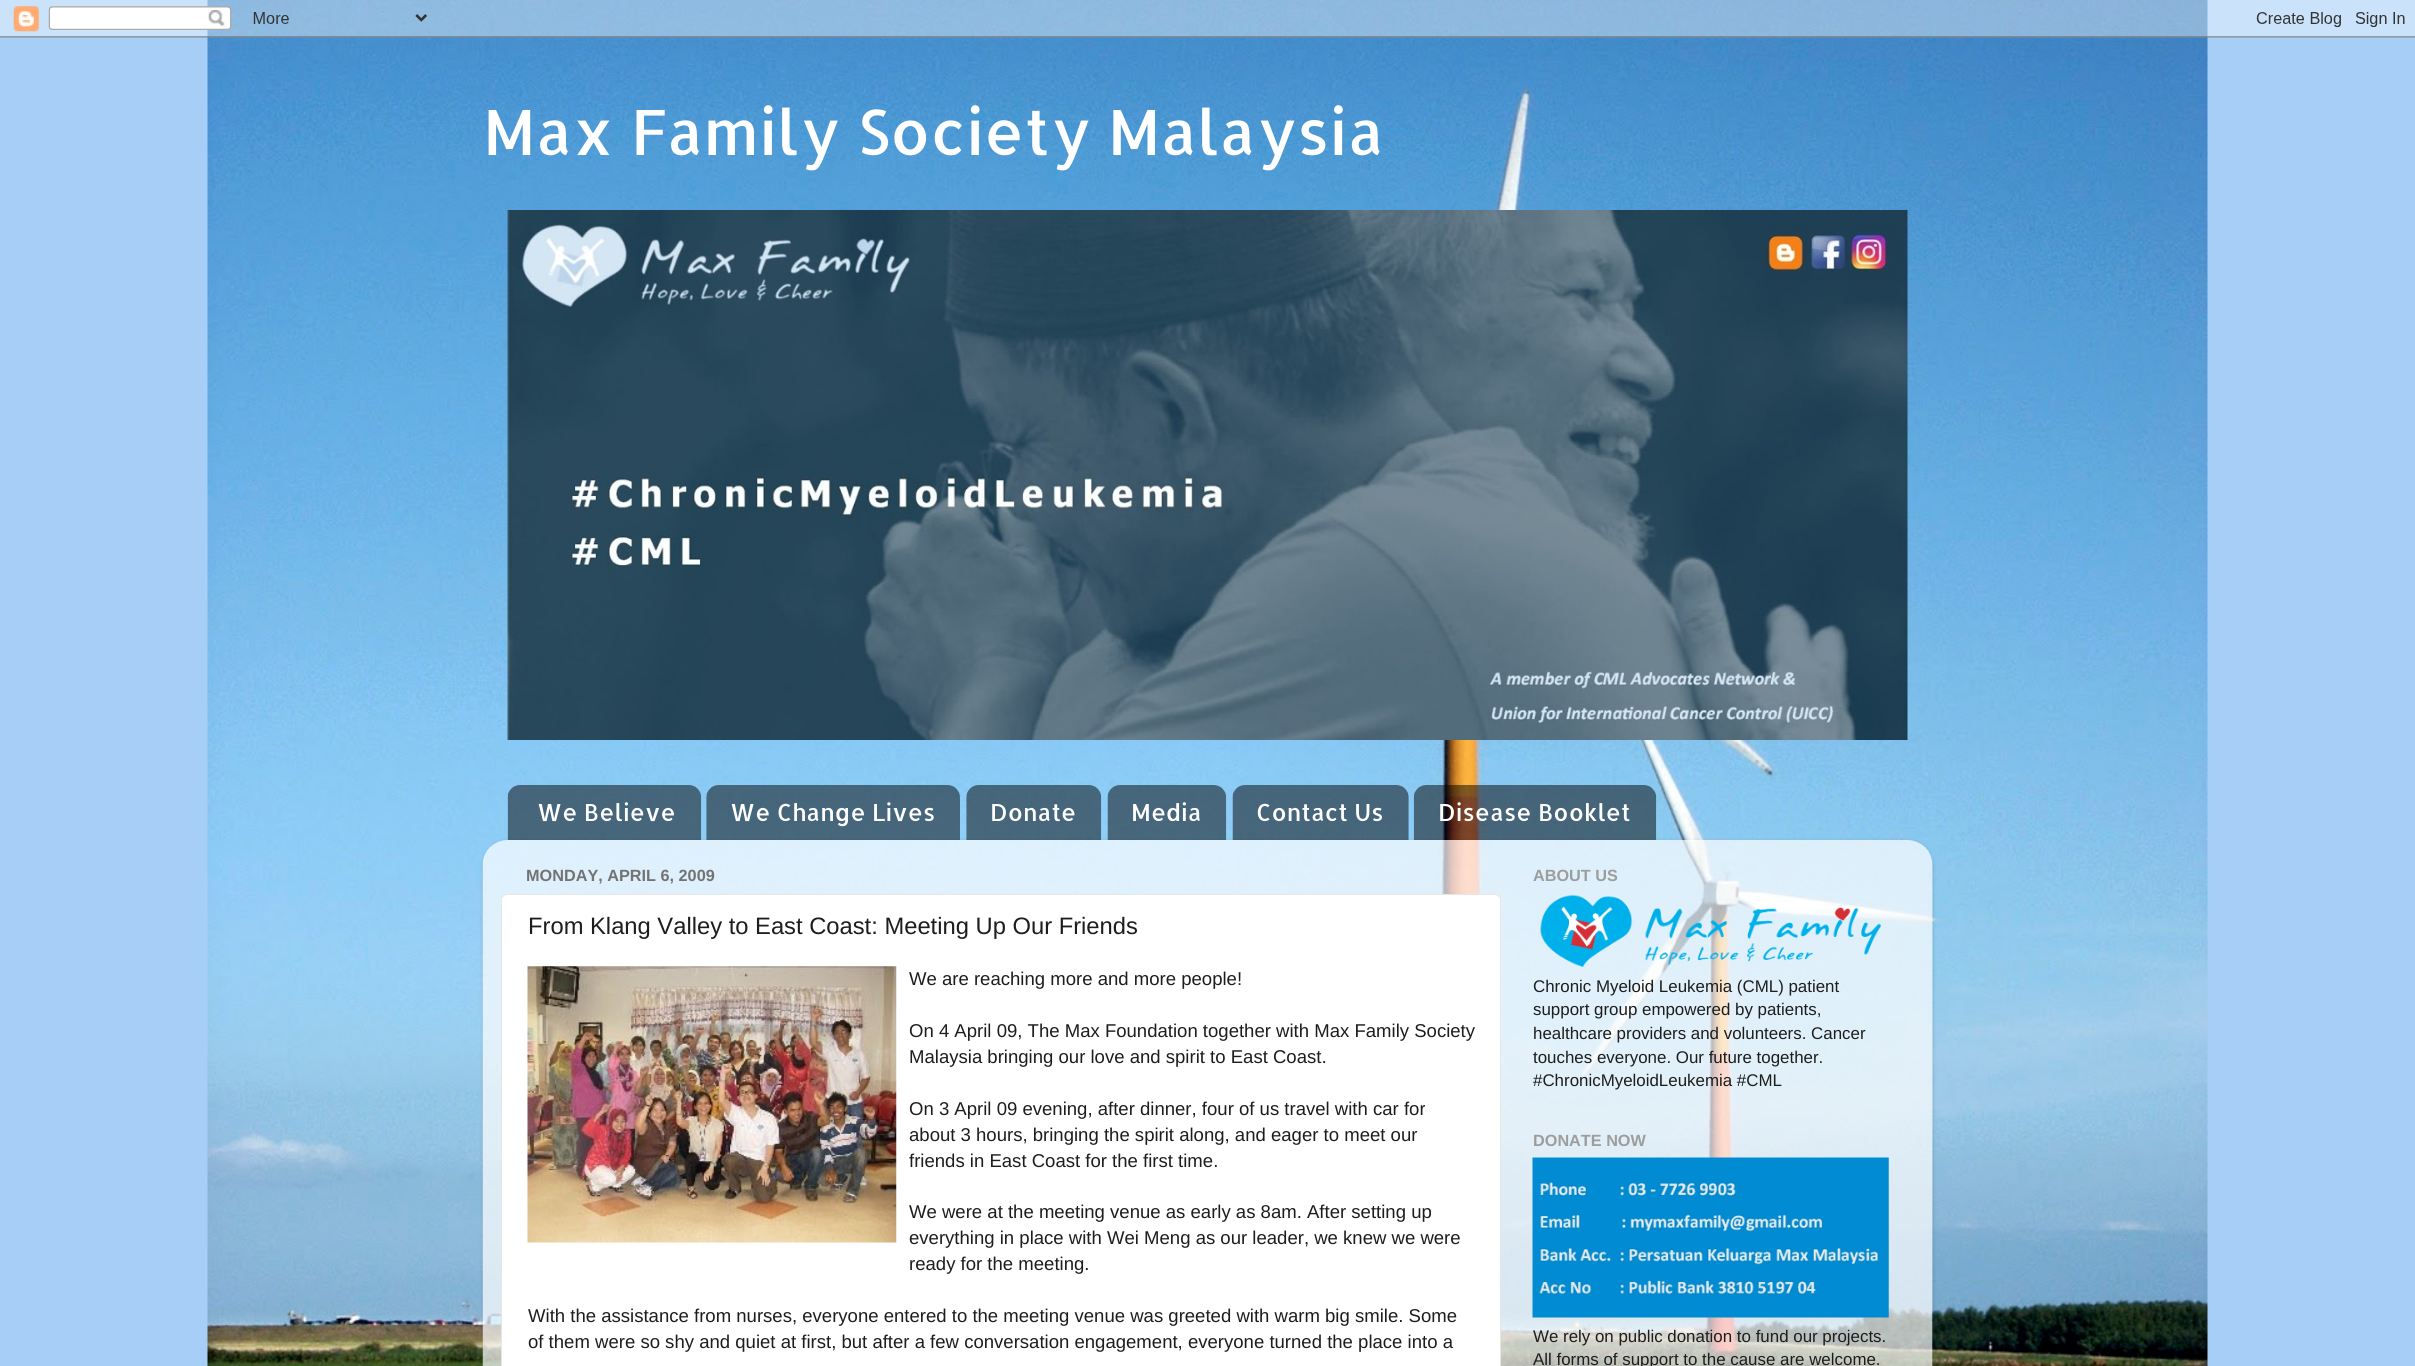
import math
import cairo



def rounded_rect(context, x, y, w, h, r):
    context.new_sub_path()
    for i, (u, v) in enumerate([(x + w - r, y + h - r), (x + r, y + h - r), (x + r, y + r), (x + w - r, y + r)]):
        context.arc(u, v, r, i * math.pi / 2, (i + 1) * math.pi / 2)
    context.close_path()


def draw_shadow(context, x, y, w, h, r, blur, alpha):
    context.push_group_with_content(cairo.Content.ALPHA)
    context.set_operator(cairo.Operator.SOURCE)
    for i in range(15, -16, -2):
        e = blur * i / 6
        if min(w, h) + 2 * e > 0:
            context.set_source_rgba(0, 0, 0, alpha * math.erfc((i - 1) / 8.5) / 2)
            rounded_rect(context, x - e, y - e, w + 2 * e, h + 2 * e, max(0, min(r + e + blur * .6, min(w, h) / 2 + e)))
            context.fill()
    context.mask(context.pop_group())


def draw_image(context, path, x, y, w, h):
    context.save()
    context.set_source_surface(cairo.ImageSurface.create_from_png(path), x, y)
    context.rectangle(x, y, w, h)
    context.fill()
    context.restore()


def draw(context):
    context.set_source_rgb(167 / 255, 206 / 255, 247 / 255)
    context.paint()
    draw_image(context, "images/1.png", 207, 0, 2001, 1366)
    draw_image(context, "images/2.png", 0, 0, 2415, 38)
    draw_image(context, "images/3.png", 507, 210, 1401, 530)
    draw_image(context, "images/4.png", 507, 785, 195, 55)
    draw_image(context, "images/5.png", 706, 785, 254, 55)
    draw_image(context, "images/6.png", 966, 785, 136, 55)
    draw_image(context, "images/7.png", 1107, 785, 120, 55)
    draw_image(context, "images/8.png", 1232, 785, 177, 55)
    draw_image(context, "images/9.png", 1413, 785, 244, 55)
    context.save()
    context.set_fill_rule(cairo.FillRule.EVEN_ODD)
    context.new_path()
    context.move_to(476, 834)
    context.line_to(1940, 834)
    context.line_to(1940, 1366)
    context.line_to(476, 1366)
    context.close_path()
    context.move_to(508, 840)
    context.line_to(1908, 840)
    context.curve_to(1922, 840, 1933, 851, 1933, 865)
    context.line_to(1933, 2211)
    context.line_to(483, 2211)
    context.line_to(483, 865)
    context.curve_to(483, 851, 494, 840, 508, 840)
    context.close_path()
    context.clip()
    context.set_source_rgb(0, 0, 0)
    draw_shadow(context, 483, 841, 1450, 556, 25, 2, 0.15)
    context.restore()
    draw_image(context, "images/10.png", 482, 840, 1451, 526)
    context.set_source_rgb(1, 1, 1)
    rounded_rect(context, 501.5, 894.5, 999, 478, 5.5)
    context.fill_preserve()
    context.set_source_rgb(230 / 255, 230 / 255, 230 / 255)
    context.set_line_width(1)
    context.stroke()
    draw_image(context, "images/11.png", 527, 966, 370, 277)
    draw_image(context, "images/12.png", 1540, 894, 341, 73)
    draw_image(context, "images/13.png", 1532, 1157, 357, 161)
    context.select_font_face("Allerta")
    context.set_font_size(62.5)
    context.set_source_rgb(1, 1, 1)
    context.move_to(483, 155)
    context.show_text("Max Family Society Malaysia")
    context.set_font_size(23.6)
    context.move_to(537, 821)
    context.show_text("We Believe")
    context.move_to(730, 821)
    context.show_text("We Change Lives")
    context.move_to(990, 821)
    context.show_text("Donate")
    context.move_to(1131, 821)
    context.show_text("Media")
    context.move_to(1256, 821)
    context.show_text("Contact Us")
    context.move_to(1438, 821)
    context.show_text("Disease Booklet")
    context.select_font_face("Liberation Sans", cairo.FontSlant.NORMAL, cairo.FontWeight.BOLD)
    context.set_font_size(16.25)
    context.set_source_rgb(115 / 255, 115 / 255, 115 / 255)
    context.move_to(526, 881)
    context.show_text("MONDAY, APRIL 6, 2009")
    context.select_font_face("Liberation Sans")
    context.set_font_size(23.75)
    context.set_source_rgb(29 / 255, 29 / 255, 29 / 255)
    context.move_to(528, 934)
    context.show_text("From Klang Valley to East Coast: Meeting Up Our Friends")
    context.set_font_size(18.55)
    context.move_to(909, 985)
    context.show_text("We are reaching more and more people!")
    context.move_to(909, 1037)
    context.show_text("On 4 April 09, The Max Foundation together with Max Family Society")
    context.move_to(909, 1063)
    context.show_text("Malaysia bringing our love and spirit to East Coast.")
    context.move_to(909, 1115)
    context.show_text("On 3 April 09 evening, after dinner, four of us travel with car for")
    context.move_to(909, 1141)
    context.show_text("about 3 hours, bringing the spirit along, and eager to meet our")
    context.move_to(909, 1167)
    context.show_text("friends in East Coast for the first time.")
    context.move_to(909, 1218)
    context.show_text("We were at the meeting venue as early as 8am. After setting up")
    context.move_to(909, 1244)
    context.show_text("everything in place with Wei Meng as our leader, we knew we were")
    context.move_to(909, 1270)
    context.show_text("ready for the meeting.")
    context.move_to(528, 1322)
    context.show_text("With the assistance from nurses, everyone entered to the meeting venue was greeted with warm big smile. Some")
    context.move_to(528, 1348)
    context.show_text("of them were so shy and quiet at first, but after a few conversation engagement, everyone turned the place into a")
    context.select_font_face("Liberation Sans", cairo.FontSlant.NORMAL, cairo.FontWeight.BOLD)
    context.set_font_size(16.25)
    context.set_source_rgb(157 / 255, 157 / 255, 157 / 255)
    context.move_to(1533, 881)
    context.show_text("ABOUT US")
    context.select_font_face("Liberation Sans")
    context.set_font_size(16.9)
    context.set_source_rgb(29 / 255, 29 / 255, 29 / 255)
    context.move_to(1533, 992)
    context.show_text("Chronic Myeloid Leukemia (CML) patient")
    context.move_to(1533, 1015)
    context.show_text("support group empowered by patients,")
    context.move_to(1533, 1039)
    context.show_text("healthcare providers and volunteers. Cancer")
    context.move_to(1533, 1063)
    context.show_text("touches everyone. Our future together.")
    context.move_to(1533, 1086)
    context.show_text("#ChronicMyeloidLeukemia #CML")
    context.select_font_face("Liberation Sans", cairo.FontSlant.NORMAL, cairo.FontWeight.BOLD)
    context.set_font_size(16.25)
    context.set_source_rgb(157 / 255, 157 / 255, 157 / 255)
    context.move_to(1533, 1146)
    context.show_text("DONATE NOW")
    context.select_font_face("Liberation Sans")
    context.set_font_size(16.9)
    context.set_source_rgb(29 / 255, 29 / 255, 29 / 255)
    context.move_to(1533, 1342)
    context.show_text("We rely on public donation to fund our projects.")
    context.move_to(1533, 1365)
    context.show_text("All forms of support to the cause are welcome.")


surface = cairo.ImageSurface(cairo.Format.RGB24, 2415, 1366)
context = cairo.Context(surface)
options = cairo.FontOptions()
options.set_hint_metrics(cairo.HintMetrics.OFF)
options.set_hint_style(cairo.HintStyle.NONE)
context.set_font_options(options)
context.set_miter_limit(4)
draw(context)
surface.write_to_png("out.png")
